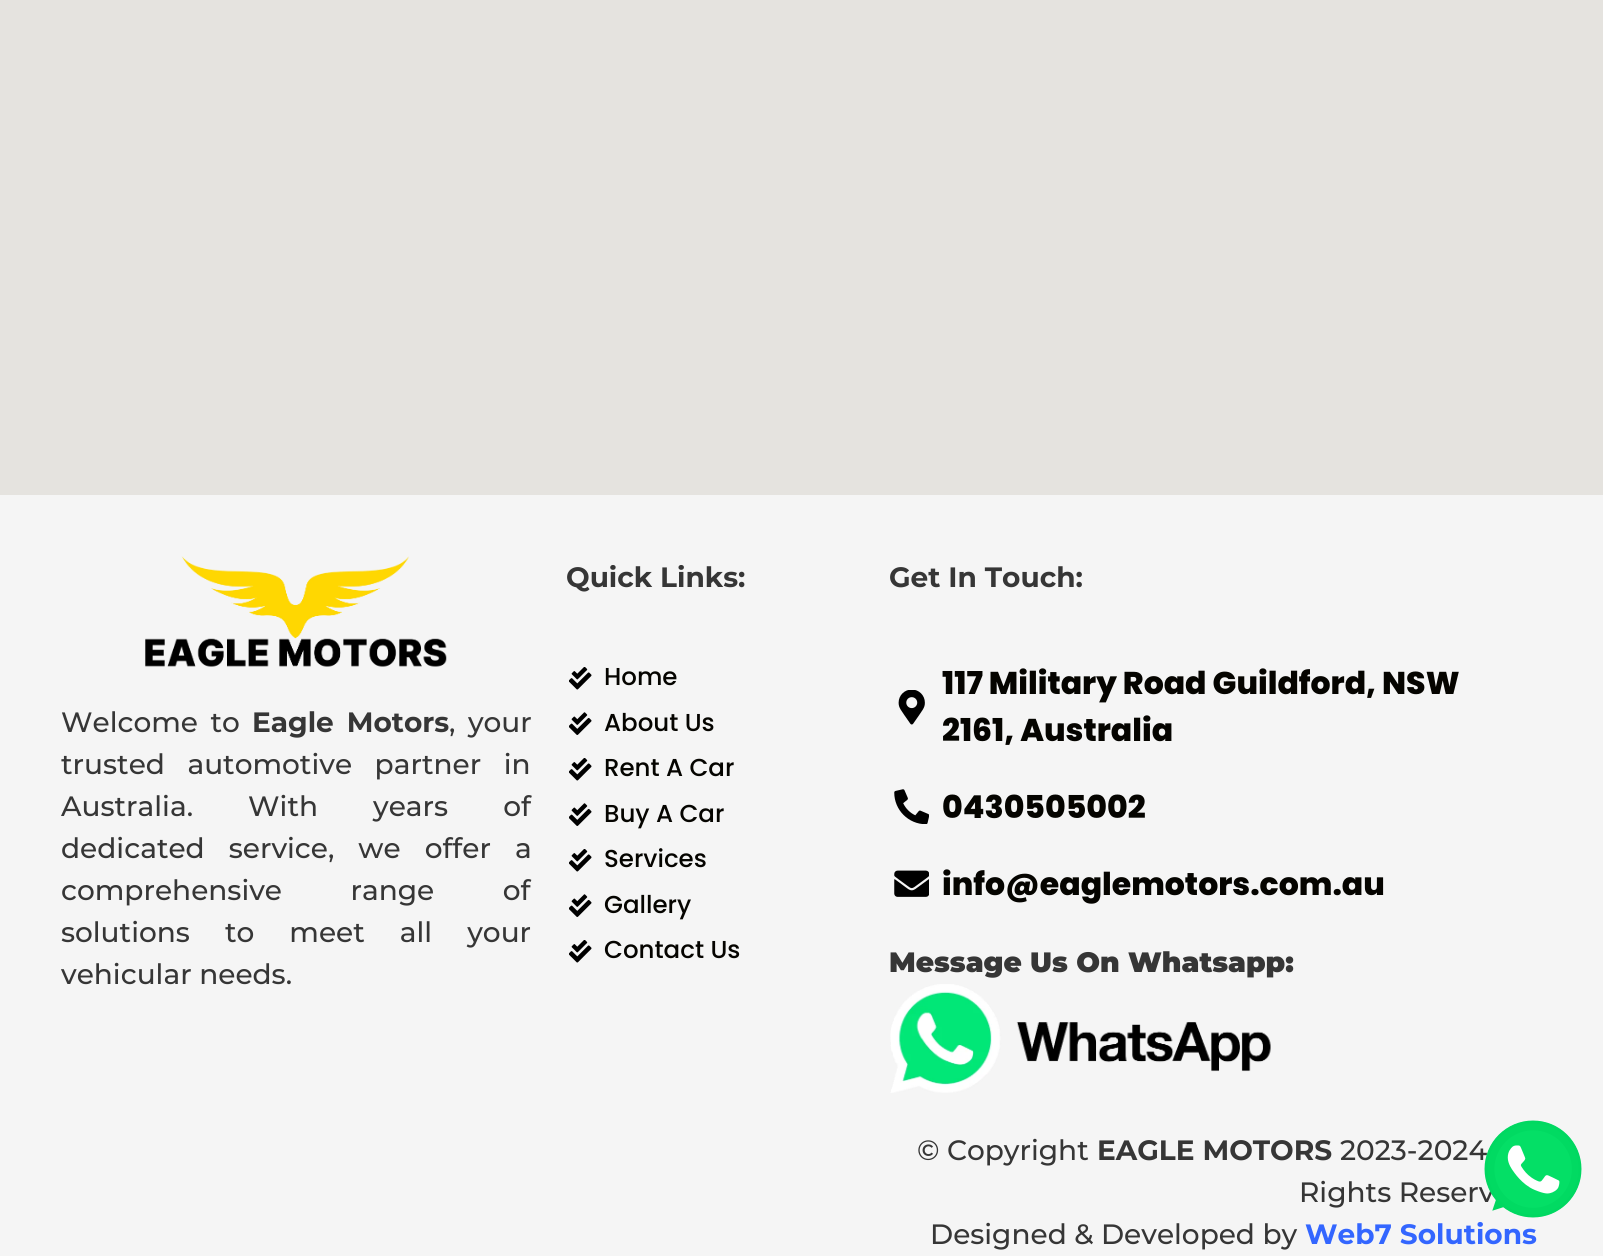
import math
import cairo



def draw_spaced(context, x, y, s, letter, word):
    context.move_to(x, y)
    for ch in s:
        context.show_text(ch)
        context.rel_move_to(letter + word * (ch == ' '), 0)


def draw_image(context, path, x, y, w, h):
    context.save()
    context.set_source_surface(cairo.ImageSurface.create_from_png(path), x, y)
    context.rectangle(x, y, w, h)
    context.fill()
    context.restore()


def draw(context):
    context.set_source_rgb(229 / 255, 227 / 255, 223 / 255)
    context.paint()
    context.set_source_rgb(245 / 255, 245 / 255, 245 / 255)
    context.rectangle(0, 495, 1603, 761)
    context.fill()
    draw_image(context, "images/1.png", 145, 556, 302, 111)
    draw_image(context, "images/3.png", 569, 667, 23, 23)
    draw_image(context, "images/4.png", 569, 712, 23, 23)
    draw_image(context, "images/3.png", 569, 758, 23, 23)
    draw_image(context, "images/4.png", 569, 803, 23, 23)
    draw_image(context, "images/3.png", 569, 849, 23, 23)
    draw_image(context, "images/4.png", 569, 894, 23, 23)
    draw_image(context, "images/3.png", 569, 940, 23, 23)
    draw_image(context, "images/5.png", 898, 690, 27, 35)
    draw_image(context, "images/6.png", 894, 789, 35, 35)
    draw_image(context, "images/7.png", 894, 870, 35, 27)
    draw_image(context, "images/8.png", 890, 984, 381, 109)
    context.select_font_face("Montserrat Medium")
    context.set_font_size(28)
    context.set_source_rgb(54 / 255, 54 / 255, 54 / 255)
    draw_spaced(context, 61, 732, "Welcome to", 0, 5)
    context.select_font_face("Montserrat", cairo.FontSlant.NORMAL, cairo.FontWeight.BOLD)
    draw_spaced(context, 252, 732, "Eagle Motors", 0, 5)
    context.select_font_face("Montserrat Medium")
    draw_spaced(context, 449, 732, ", your", 0, 5)
    draw_spaced(context, 61, 774, "trusted automotive partner in", 0, 15)
    draw_spaced(context, 61, 816, "Australia. With years of", 0, 47.5)
    draw_spaced(context, 61, 858, "dedicated service, we offer a", 0, 16.5)
    draw_spaced(context, 61, 900, "comprehensive range of", 0, 61)
    draw_spaced(context, 61, 942, "solutions to meet all your", 0, 27.5)
    context.move_to(61, 984)
    context.show_text("vehicular needs.")
    context.select_font_face("Montserrat", cairo.FontSlant.NORMAL, cairo.FontWeight.BOLD)
    context.move_to(566, 587)
    context.show_text("Quick Links:")
    context.select_font_face("Poppins Medium")
    context.set_font_size(24.5)
    context.set_source_rgb(5 / 255, 4 / 255, 0)
    context.move_to(604, 685)
    context.show_text("Home")
    context.move_to(604, 731)
    context.show_text("About Us")
    context.move_to(604, 776)
    context.show_text("Rent A Car")
    context.move_to(604, 822)
    context.show_text("Buy A Car")
    context.move_to(604, 867)
    context.show_text("Services")
    context.move_to(604, 913)
    context.show_text("Gallery")
    context.move_to(604, 958)
    context.show_text("Contact Us")
    context.select_font_face("Montserrat", cairo.FontSlant.NORMAL, cairo.FontWeight.BOLD)
    context.set_font_size(28)
    context.set_source_rgb(54 / 255, 54 / 255, 54 / 255)
    context.move_to(889, 587)
    context.show_text("Get In Touch:")
    context.select_font_face("Poppins ExtraBold")
    context.set_font_size(31.5)
    context.set_source_rgb(5 / 255, 4 / 255, 0)
    context.move_to(942, 694)
    context.show_text("117 Military Road Guildford, NSW")
    context.move_to(942, 741)
    context.show_text("2161, Australia")
    context.move_to(942, 818)
    context.show_text("0430505002")
    context.move_to(942, 895)
    context.show_text("info@eaglemotors.com.au")
    context.select_font_face("Montserrat Black")
    context.set_font_size(28)
    context.set_source_rgb(54 / 255, 54 / 255, 54 / 255)
    context.move_to(889, 972)
    context.show_text("Message Us On Whatsapp:")
    context.select_font_face("Montserrat Medium")
    context.move_to(917, 1160)
    context.show_text("© Copyright")
    context.select_font_face("Montserrat", cairo.FontSlant.NORMAL, cairo.FontWeight.BOLD)
    context.move_to(1097, 1160)
    context.show_text("EAGLE MOTORS")
    context.select_font_face("Montserrat Medium")
    context.move_to(1340, 1160)
    context.show_text("2023-2024")
    context.move_to(1299, 1202)
    context.show_text("Rights Reserv")
    draw_image(context, "images/2.png", 1484, 1120, 98, 98)
    context.move_to(930, 1244)
    context.show_text("Designed & Developed by")
    context.select_font_face("Montserrat", cairo.FontSlant.NORMAL, cairo.FontWeight.BOLD)
    context.set_source_rgb(51 / 255, 102 / 255, 1)
    context.move_to(1305, 1244)
    context.show_text("Web7 Solutions")


surface = cairo.ImageSurface(cairo.Format.RGB24, 1603, 1256)
context = cairo.Context(surface)
options = cairo.FontOptions()
options.set_hint_metrics(cairo.HintMetrics.OFF)
options.set_hint_style(cairo.HintStyle.NONE)
context.set_font_options(options)
context.set_miter_limit(4)
draw(context)
surface.write_to_png("out.png")
